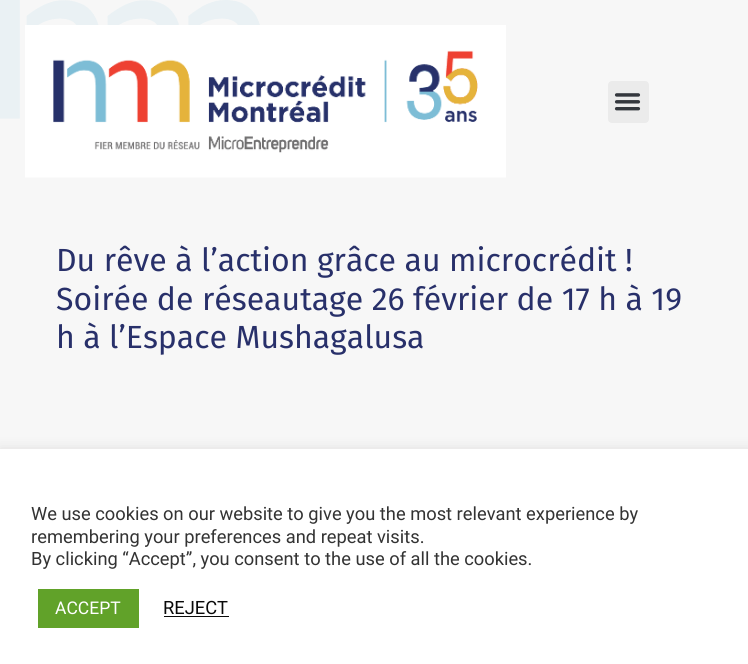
import math
import cairo



def rounded_rect(context, x, y, w, h, r):
    context.new_sub_path()
    for i, (u, v) in enumerate([(x + w - r, y + h - r), (x + r, y + h - r), (x + r, y + r), (x + w - r, y + r)]):
        context.arc(u, v, r, i * math.pi / 2, (i + 1) * math.pi / 2)
    context.close_path()


def draw_shadow(context, x, y, w, h, r, blur, alpha):
    context.push_group_with_content(cairo.Content.ALPHA)
    context.set_operator(cairo.Operator.SOURCE)
    for i in range(15, -16, -2):
        e = blur * i / 6
        if min(w, h) + 2 * e > 0:
            context.set_source_rgba(0, 0, 0, alpha * math.erfc((i - 1) / 8.5) / 2)
            rounded_rect(context, x - e, y - e, w + 2 * e, h + 2 * e, max(0, min(r + e + blur * .6, min(w, h) / 2 + e)))
            context.fill()
    context.mask(context.pop_group())


def draw_image(context, path, x, y, w, h):
    context.save()
    context.set_source_surface(cairo.ImageSurface.create_from_png(path), x, y)
    context.rectangle(x, y, w, h)
    context.fill()
    context.restore()


def draw(context):
    context.set_source_rgb(247 / 255, 247 / 255, 247 / 255)
    context.paint()
    draw_image(context, "images/1.png", 0, 0, 260, 119)
    draw_image(context, "images/2.png", 25, 25, 481, 153)
    context.set_source_rgb(235 / 255, 235 / 255, 235 / 255)
    rounded_rect(context, 608, 81, 41, 42, 4)
    context.fill()
    draw_image(context, "images/3.png", 614, 93, 27, 18)
    context.set_source_rgb(172 / 255, 171 / 255, 171 / 255)
    draw_shadow(context, 0, 448, 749, 216, 0, 6, 0.3)
    context.set_source_rgb(1, 1, 1)
    context.rectangle(0, 449, 748, 215)
    context.fill()
    context.set_source_rgb(97 / 255, 162 / 255, 41 / 255)
    context.rectangle(38, 589, 101, 39)
    context.fill()
    context.set_source_rgb(10 / 255, 10 / 255, 10 / 255)
    context.rectangle(164, 616, 65, 1)
    context.fill()
    context.select_font_face("Fira Sans")
    context.set_font_size(32)
    context.set_source_rgb(40 / 255, 48 / 255, 106 / 255)
    context.move_to(56, 271)
    context.show_text("Du rêve à l’action grâce au microcrédit !")
    context.move_to(56, 310)
    context.show_text("Soirée de réseautage 26 février de 17 h à 19")
    context.move_to(56, 348)
    context.show_text("h à l’Espace Mushagalusa")
    context.select_font_face("Roboto")
    context.set_font_size(18.3)
    context.set_source_rgb(51 / 255, 51 / 255, 51 / 255)
    context.move_to(31, 520)
    context.show_text("We use cookies on our website to give you the most relevant experience by")
    context.move_to(31, 543)
    context.show_text("remembering your preferences and repeat visits.")
    context.move_to(31, 565)
    context.show_text("By clicking “Accept”, you consent to the use of all the cookies.")
    context.set_font_size(17.5)
    context.set_source_rgb(1, 1, 1)
    context.move_to(55, 614)
    context.show_text("ACCEPT")
    context.set_font_size(18.3)
    context.set_source_rgb(10 / 255, 10 / 255, 10 / 255)
    context.move_to(163, 614)
    context.show_text("REJECT")


surface = cairo.ImageSurface(cairo.Format.RGB24, 748, 664)
context = cairo.Context(surface)
options = cairo.FontOptions()
options.set_hint_metrics(cairo.HintMetrics.OFF)
options.set_hint_style(cairo.HintStyle.NONE)
context.set_font_options(options)
context.set_miter_limit(4)
draw(context)
surface.write_to_png("out.png")
